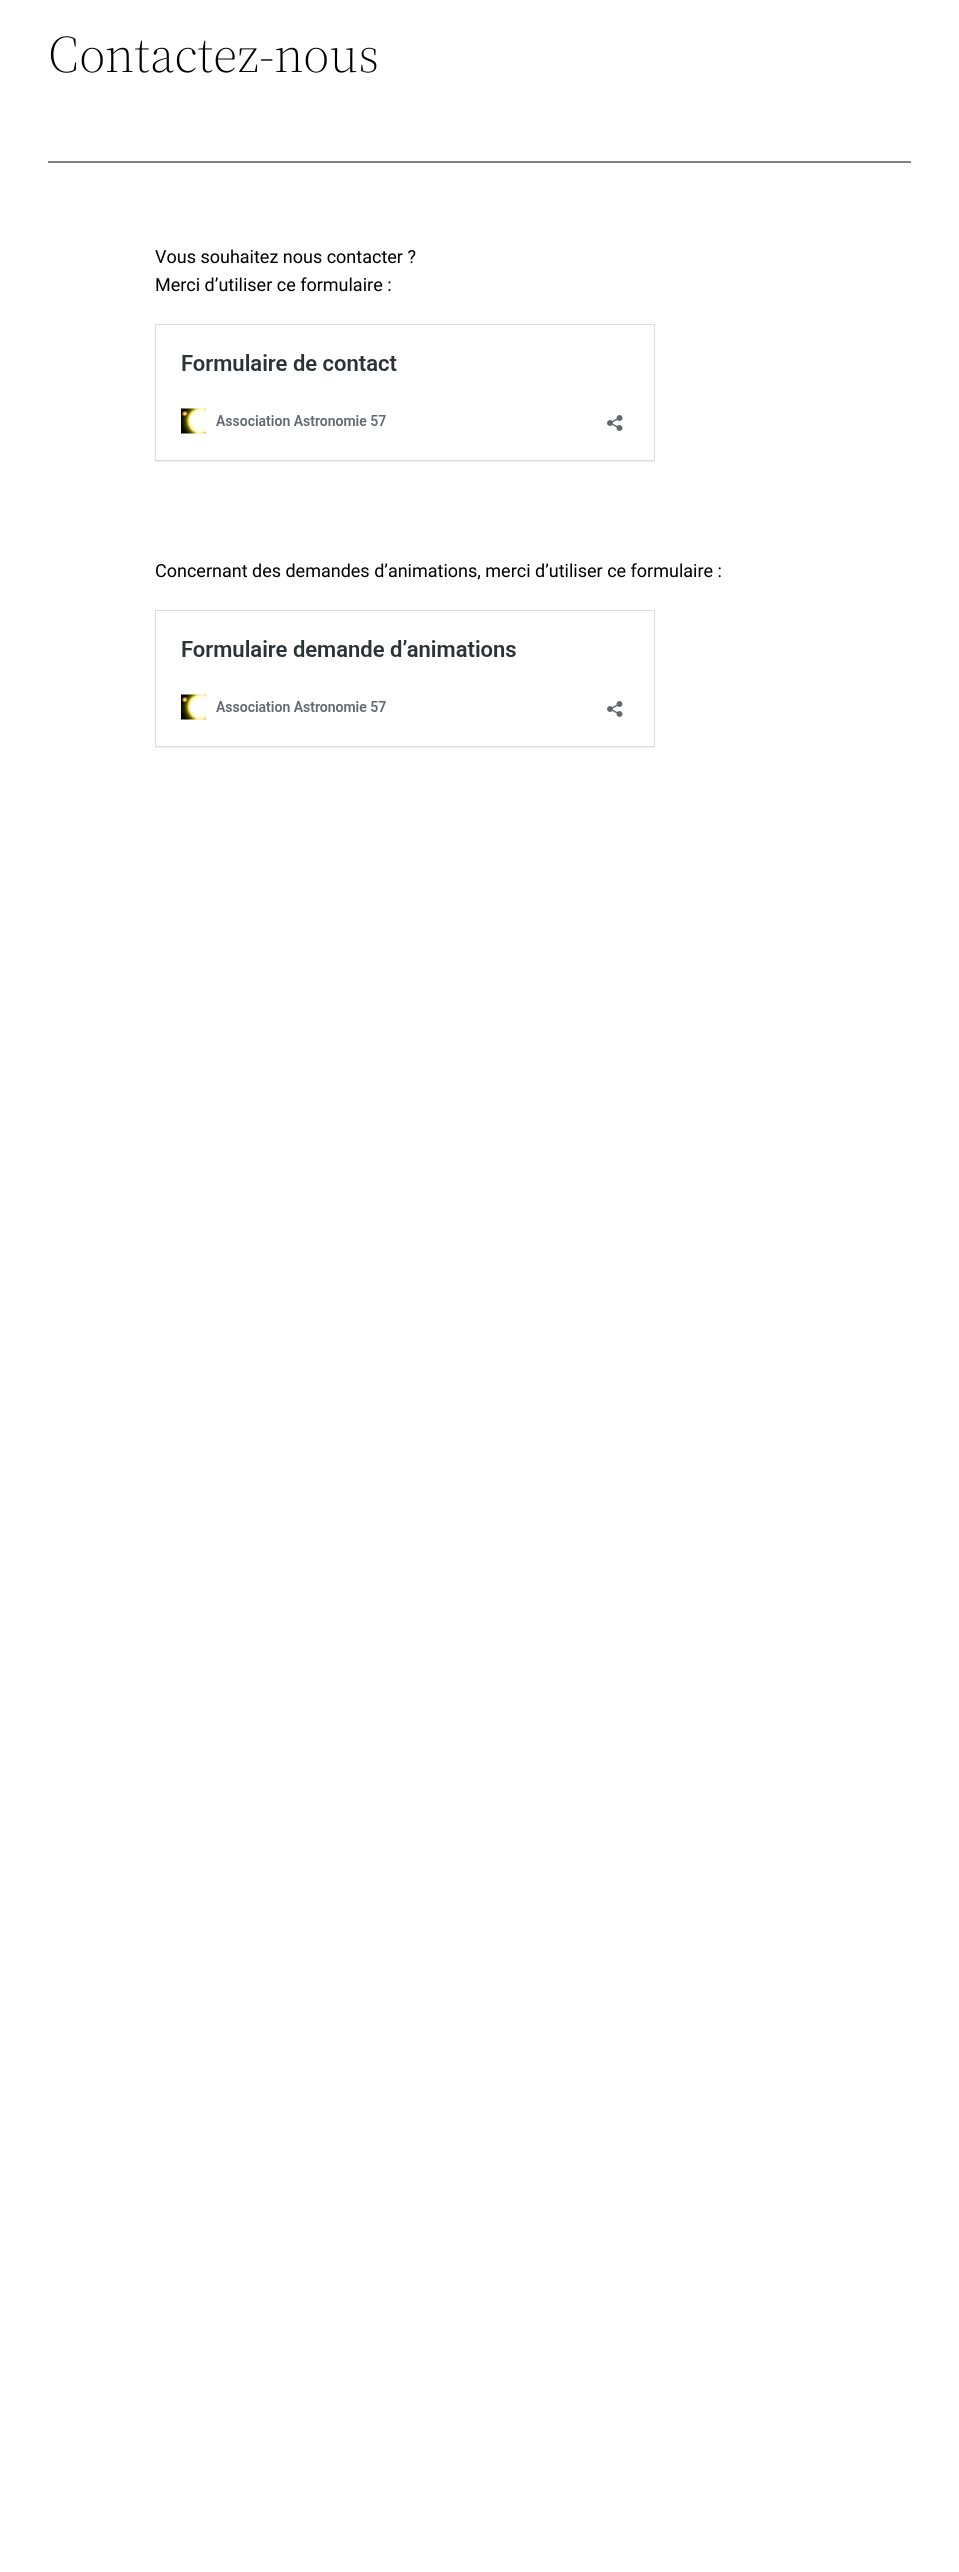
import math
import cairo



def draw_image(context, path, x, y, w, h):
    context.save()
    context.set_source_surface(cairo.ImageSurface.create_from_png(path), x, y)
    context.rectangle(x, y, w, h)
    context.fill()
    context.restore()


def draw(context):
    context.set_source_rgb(1, 1, 1)
    context.paint()
    context.set_source_rgb(128 / 255, 128 / 255, 128 / 255)
    context.rectangle(48, 161, 863, 2)
    context.fill()
    draw_image(context, "images/1.png", 155, 324, 500, 138)
    draw_image(context, "images/2.png", 155, 610, 500, 138)
    context.select_font_face("Source Serif 4 Light")
    context.set_font_size(52)
    context.set_source_rgb(0, 0, 0)
    context.move_to(48, 72)
    context.show_text("Contactez-nous")
    context.select_font_face("Roboto")
    context.set_font_size(18)
    context.move_to(155, 263)
    context.show_text("Vous souhaitez nous contacter ?")
    context.move_to(155, 291)
    context.show_text("Merci d’utiliser ce formulaire :")
    context.move_to(155, 577)
    context.show_text("Concernant des demandes d’animations, merci d’utiliser ce formulaire :")


surface = cairo.ImageSurface(cairo.Format.RGB24, 959, 2572)
context = cairo.Context(surface)
options = cairo.FontOptions()
options.set_hint_metrics(cairo.HintMetrics.OFF)
options.set_hint_style(cairo.HintStyle.NONE)
context.set_font_options(options)
context.set_miter_limit(4)
draw(context)
surface.write_to_png("out.png")
